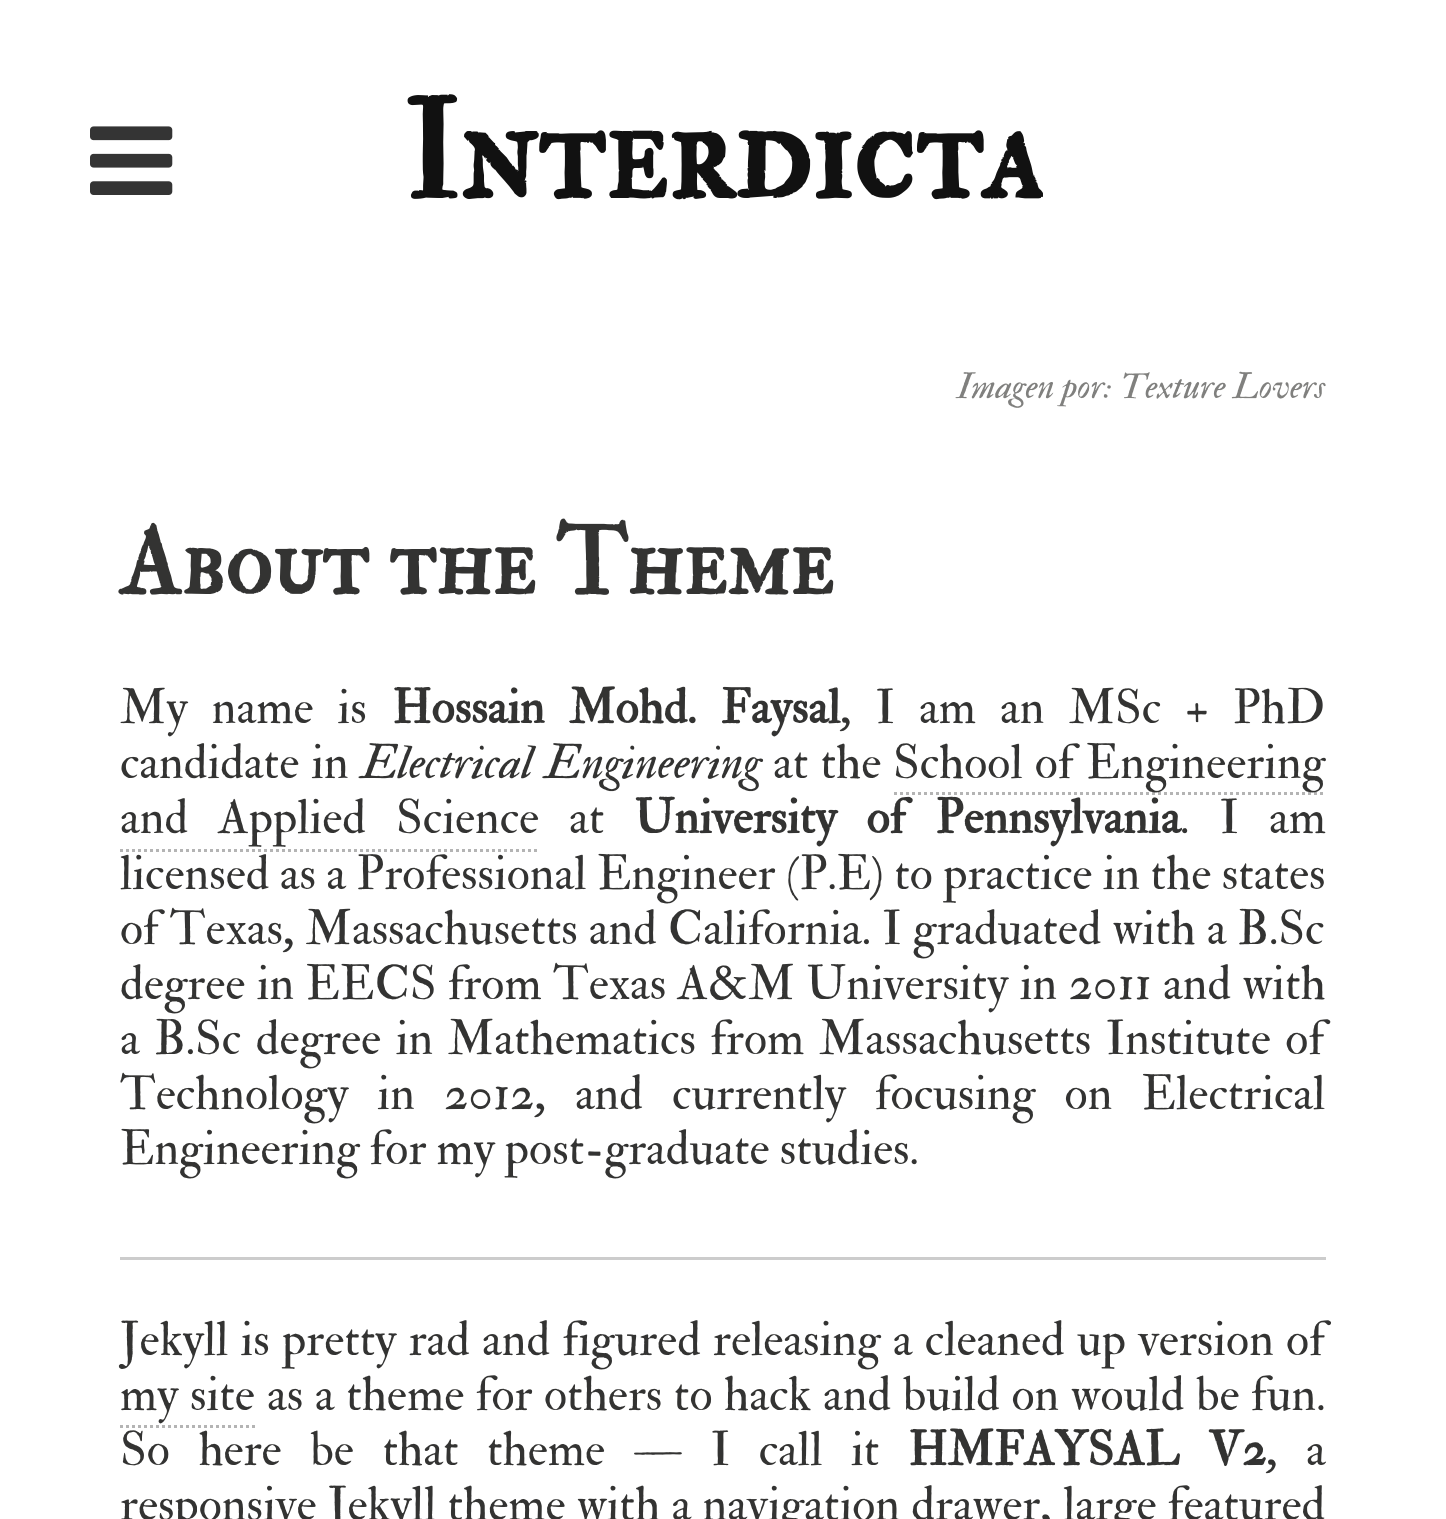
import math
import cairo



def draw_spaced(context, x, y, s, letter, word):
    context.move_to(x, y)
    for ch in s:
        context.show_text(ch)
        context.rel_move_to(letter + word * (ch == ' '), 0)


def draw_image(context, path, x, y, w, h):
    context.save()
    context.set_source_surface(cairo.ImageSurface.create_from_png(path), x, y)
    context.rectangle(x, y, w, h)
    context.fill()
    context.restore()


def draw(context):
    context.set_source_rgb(1, 1, 1)
    context.paint()
    draw_image(context, "images/1.png", 90, 126, 83, 69)
    context.new_path()
    context.move_to(894, 793.5)
    context.line_to(1326, 793.5)
    context.set_source_rgb(180 / 255, 180 / 255, 180 / 255)
    context.set_line_width(3)
    context.set_dash([3, 3])
    context.stroke()
    context.new_path()
    context.move_to(120, 850.5)
    context.line_to(540, 850.5)
    context.stroke()
    context.set_source_rgb(204 / 255, 204 / 255, 204 / 255)
    context.rectangle(120, 1257, 1206, 3)
    context.fill()
    context.new_path()
    context.move_to(120, 1426.5)
    context.line_to(255, 1426.5)
    context.set_source_rgb(180 / 255, 180 / 255, 180 / 255)
    context.stroke()
    context.select_font_face("IM FELL Double Pica SC", cairo.FontSlant.NORMAL, cairo.FontWeight.BOLD)
    context.set_font_size(138)
    context.set_source_rgb(17 / 255, 17 / 255, 17 / 255)
    context.move_to(403, 198)
    context.show_text("Interdicta")
    context.select_font_face("IM FELL Double Pica", cairo.FontSlant.ITALIC)
    context.set_font_size(36)
    context.set_source_rgb(128 / 255, 128 / 255, 126 / 255)
    context.move_to(957, 398)
    context.show_text("Imagen por: Texture Lovers")
    context.select_font_face("IM FELL Double Pica SC", cairo.FontSlant.NORMAL, cairo.FontWeight.BOLD)
    context.set_font_size(96)
    context.set_source_rgb(51 / 255, 51 / 255, 50 / 255)
    context.move_to(120, 594)
    context.show_text("About the Theme")
    context.select_font_face("IM FELL Double Pica")
    context.set_font_size(48)
    draw_spaced(context, 120, 723, "My name is", 0, 14)
    context.select_font_face("IM FELL Double Pica", cairo.FontSlant.NORMAL, cairo.FontWeight.BOLD)
    draw_spaced(context, 392, 723, "Hossain Mohd. Faysal", 0, 14)
    context.select_font_face("IM FELL Double Pica")
    draw_spaced(context, 840, 723, ", I am an MSc + PhD", 0, 14)
    draw_spaced(context, 120, 778, "candidate in", 0, 2)
    context.select_font_face("IM FELL Double Pica", cairo.FontSlant.ITALIC)
    draw_spaced(context, 361, 778, "Electrical Engineering", 0, 2)
    context.select_font_face("IM FELL Double Pica")
    draw_spaced(context, 773, 778, "at the", 0, 2)
    draw_spaced(context, 893, 778, "School of Engineering", 0, 2)
    draw_spaced(context, 120, 833, "and Applied Science", 0, 20)
    context.move_to(569, 833)
    context.show_text("at")
    context.select_font_face("IM FELL Double Pica", cairo.FontSlant.NORMAL, cairo.FontWeight.BOLD)
    draw_spaced(context, 634, 833, "University of Pennsylvania", 0, 20)
    context.select_font_face("IM FELL Double Pica")
    draw_spaced(context, 1180, 833, ". I am", 0, 20)
    draw_spaced(context, 120, 889, "licensed as a Professional Engineer (P.E) to practice in the states", 0, 0.25)
    draw_spaced(context, 120, 944, "of Texas, Massachusetts and California. I graduated with a B.Sc", 0, 1)
    draw_spaced(context, 120, 999, "degree in EECS from Texas A&M University in 2011 and with", 0, 1.25)
    draw_spaced(context, 120, 1054, "a B.Sc degree in Mathematics from Massachusetts Institute of", 0, 4.5)
    draw_spaced(context, 120, 1109, "Technology in 2012, and currently focusing on Electrical", 0, 19)
    context.move_to(120, 1164)
    context.show_text("Engineering for my post-graduate studies.")
    draw_spaced(context, 120, 1355, "Jekyll is pretty rad and figured releasing a cleaned up version of", 0, 2.1)
    draw_spaced(context, 120, 1410, "my site", 0, 1.5)
    draw_spaced(context, 267, 1410, "as a theme for others to hack and build on would be fun.", 0, 1.5)
    draw_spaced(context, 120, 1465, "So here be that theme — I call it", 0, 18.5)
    context.select_font_face("IM FELL Double Pica", cairo.FontSlant.NORMAL, cairo.FontWeight.BOLD)
    draw_spaced(context, 908, 1465, "HMFAYSAL V2", 0, 18.5)
    context.select_font_face("IM FELL Double Pica")
    draw_spaced(context, 1266, 1465, ", a", 0, 18.5)
    draw_spaced(context, 120, 1520, "responsive Jekyll theme with a navigation drawer, large featured", 0, 1.25)


surface = cairo.ImageSurface(cairo.Format.RGB24, 1446, 1519)
context = cairo.Context(surface)
options = cairo.FontOptions()
options.set_hint_metrics(cairo.HintMetrics.OFF)
options.set_hint_style(cairo.HintStyle.NONE)
context.set_font_options(options)
context.set_miter_limit(4)
draw(context)
surface.write_to_png("out.png")
